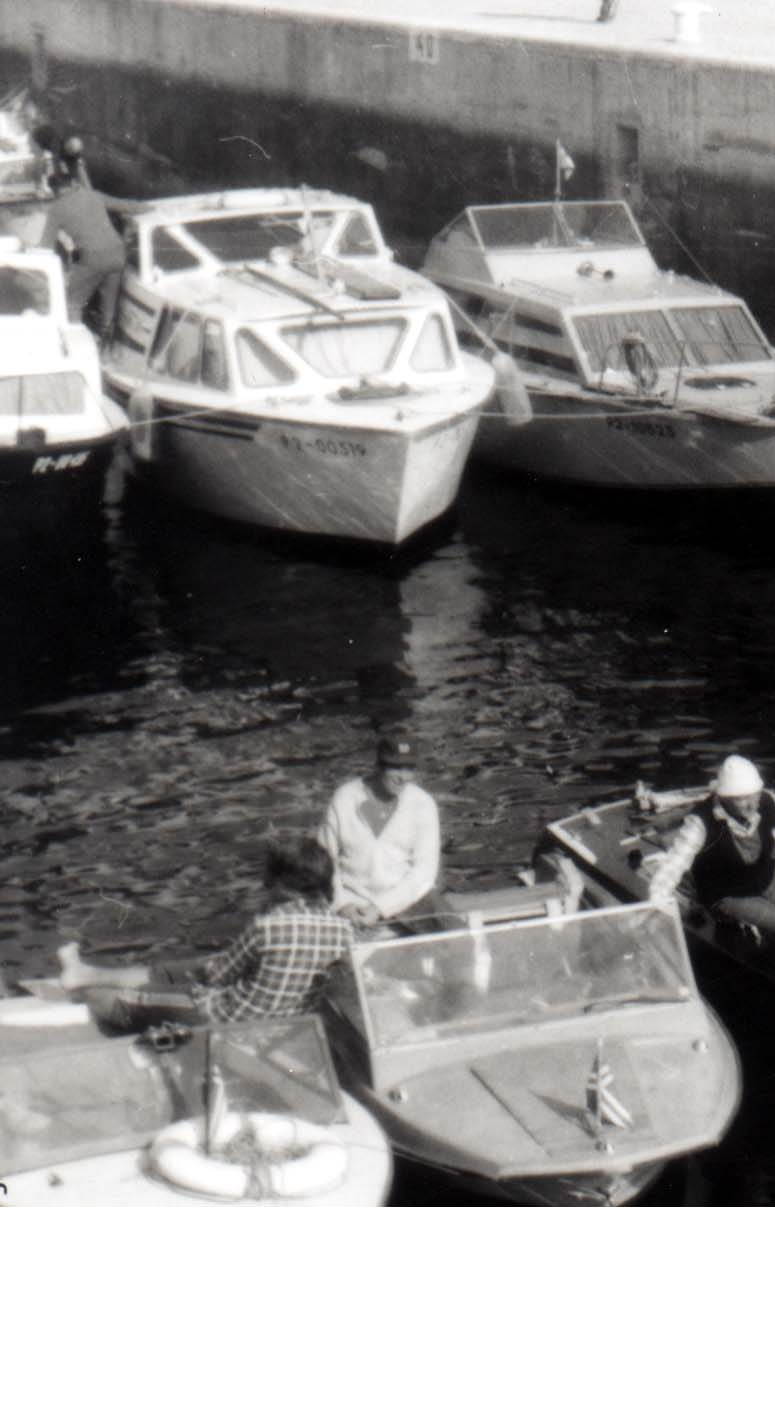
import math
import cairo



def draw_image(context, path, x, y, w, h):
    context.save()
    context.set_source_surface(cairo.ImageSurface.create_from_png(path), x, y)
    context.rectangle(x, y, w, h)
    context.fill()
    context.restore()


def draw(context):
    context.set_source_rgb(1, 1, 1)
    context.paint()
    draw_image(context, "images/1.png", 0, 0, 775, 1207)


surface = cairo.ImageSurface(cairo.Format.RGB24, 775, 1428)
context = cairo.Context(surface)
options = cairo.FontOptions()
options.set_hint_metrics(cairo.HintMetrics.OFF)
options.set_hint_style(cairo.HintStyle.NONE)
context.set_font_options(options)
context.set_miter_limit(4)
draw(context)
surface.write_to_png("out.png")
